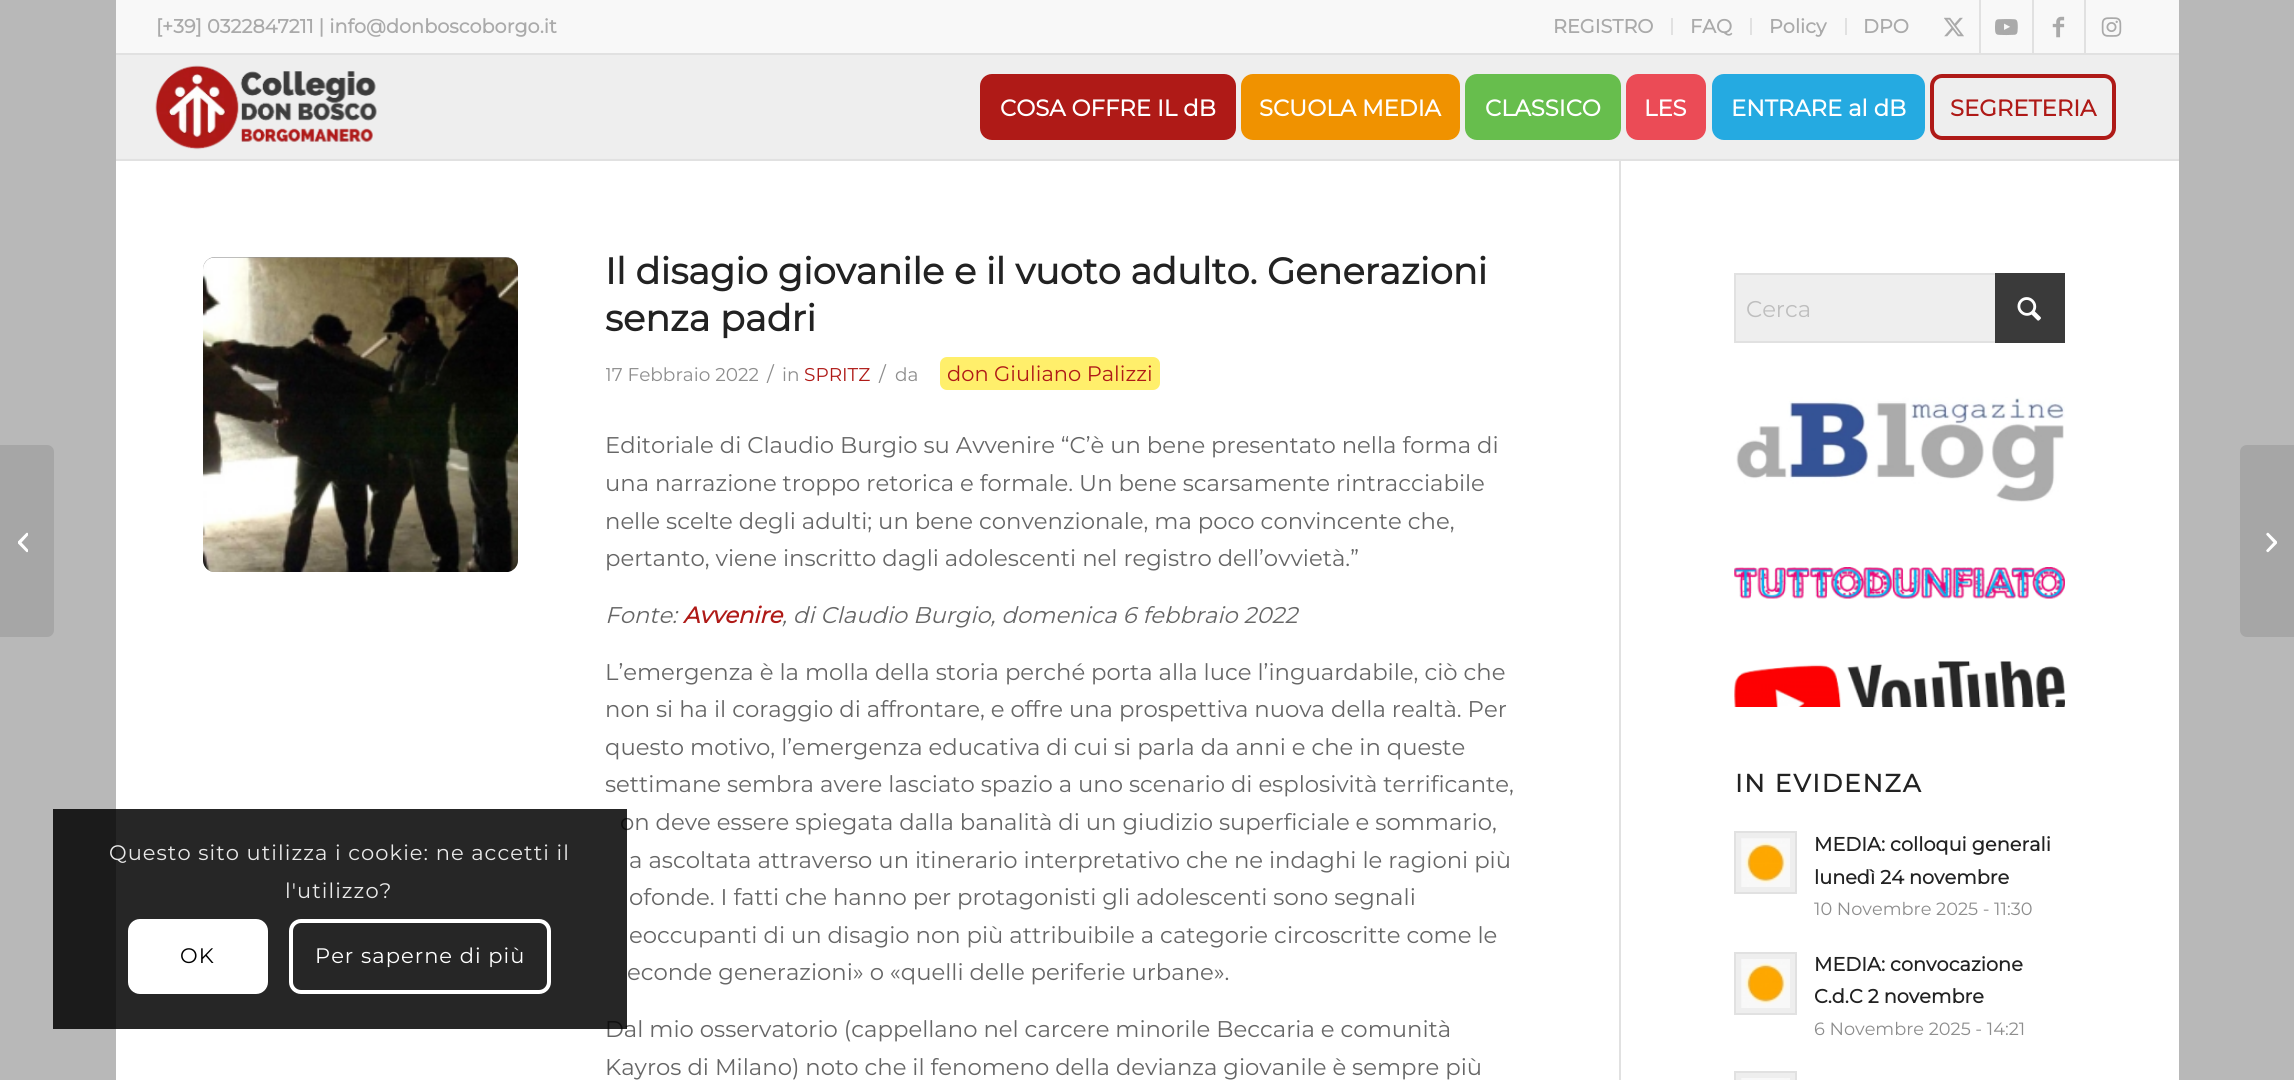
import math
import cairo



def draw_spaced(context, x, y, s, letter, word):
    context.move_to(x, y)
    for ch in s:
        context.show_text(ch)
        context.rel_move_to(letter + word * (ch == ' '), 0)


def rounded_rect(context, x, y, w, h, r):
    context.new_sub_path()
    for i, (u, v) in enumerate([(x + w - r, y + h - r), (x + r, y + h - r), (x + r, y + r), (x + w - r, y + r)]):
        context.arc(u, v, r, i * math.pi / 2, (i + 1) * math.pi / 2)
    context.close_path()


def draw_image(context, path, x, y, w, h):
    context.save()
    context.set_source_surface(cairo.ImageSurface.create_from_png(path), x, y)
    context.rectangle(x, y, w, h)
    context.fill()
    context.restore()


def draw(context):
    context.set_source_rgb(184 / 255, 184 / 255, 184 / 255)
    context.paint()
    context.set_source_rgb(248 / 255, 248 / 255, 248 / 255)
    context.rectangle(116, 0, 2063, 53)
    context.fill()
    context.set_source_rgb(225 / 255, 225 / 255, 225 / 255)
    context.rectangle(116, 53, 2063, 2)
    context.fill()
    context.rectangle(1671, 18, 2, 17)
    context.fill()
    context.rectangle(1750, 18, 2, 17)
    context.fill()
    context.rectangle(1845, 18, 2, 17)
    context.fill()
    context.rectangle(1979, 0, 2, 53)
    context.fill()
    draw_image(context, "images/1.png", 1944, 17, 20, 20)
    context.rectangle(2032, 0, 2, 53)
    context.fill()
    draw_image(context, "images/2.png", 1995, 19, 23, 17)
    context.rectangle(2084, 0, 2, 53)
    context.fill()
    draw_image(context, "images/3.png", 2052, 16, 13, 22)
    draw_image(context, "images/4.png", 2101, 17, 21, 20)
    context.set_source_rgb(1, 1, 1)
    context.rectangle(116, 161, 2063, 919)
    context.fill()
    context.set_source_rgb(225 / 255, 225 / 255, 225 / 255)
    context.rectangle(1619, 159, 2, 921)
    context.fill()
    context.rectangle(116, 159, 2063, 2)
    context.fill()
    context.set_source_rgb(238 / 255, 238 / 255, 238 / 255)
    context.rectangle(116, 55, 2063, 103)
    context.fill()
    draw_image(context, "images/5.png", 155, 65, 222, 85)
    context.set_source_rgb(175 / 255, 26 / 255, 23 / 255)
    rounded_rect(context, 982, 76, 252, 62, 10)
    context.fill_preserve()
    context.set_line_width(4)
    context.stroke()
    context.set_source_rgb(240 / 255, 146 / 255, 0)
    rounded_rect(context, 1243, 76, 215, 62, 10)
    context.fill_preserve()
    context.stroke()
    context.set_source_rgb(103 / 255, 190 / 255, 77 / 255)
    rounded_rect(context, 1467, 76, 152, 62, 10)
    context.fill_preserve()
    context.stroke()
    context.set_source_rgb(235 / 255, 75 / 255, 86 / 255)
    rounded_rect(context, 1628, 76, 76, 62, 10)
    context.fill_preserve()
    context.stroke()
    context.set_source_rgb(37 / 255, 170 / 255, 225 / 255)
    rounded_rect(context, 1714, 76, 209, 62, 10)
    context.fill_preserve()
    context.stroke()
    rounded_rect(context, 1932, 76, 182, 62, 10)
    context.set_source_rgb(175 / 255, 26 / 255, 23 / 255)
    context.stroke()
    context.set_source_rgb(166 / 255, 166 / 255, 166 / 255)
    context.new_path()
    context.move_to(0, 445)
    context.line_to(47, 445)
    context.curve_to(51, 445, 54, 448, 54, 452)
    context.line_to(54, 630)
    context.curve_to(54, 634, 51, 637, 47, 637)
    context.line_to(0, 637)
    context.close_path()
    context.fill()
    draw_image(context, "images/6.png", 18, 532, 10, 21)
    context.set_source_rgb(237 / 255, 237 / 255, 237 / 255)
    context.rectangle(116, 158, 2063, 1)
    context.fill()
    context.set_source_rgb(141 / 255, 141 / 255, 141 / 255)
    rounded_rect(context, 203, 257, 315, 315, 12)
    context.fill()
    draw_image(context, "images/7.png", 203, 257, 315, 315)
    context.set_source_rgb(1, 239 / 255, 107 / 255)
    rounded_rect(context, 940, 357, 220, 33, 7)
    context.fill()
    context.set_source_rgb(238 / 255, 238 / 255, 238 / 255)
    context.rectangle(1736, 275, 259, 66)
    context.fill()
    context.rectangle(1735, 274, 329, 68)
    context.set_source_rgb(225 / 255, 225 / 255, 225 / 255)
    context.set_line_width(2)
    context.stroke()
    context.set_source_rgb(58 / 255, 58 / 255, 58 / 255)
    context.rectangle(1995, 273, 70, 70)
    context.fill()
    draw_image(context, "images/8.png", 2017, 297, 24, 24)
    draw_image(context, "images/9.png", 1736, 397, 329, 105)
    draw_image(context, "images/10.png", 1734, 567, 331, 32)
    draw_image(context, "images/11.png", 1734, 661, 331, 46)
    context.set_source_rgb(238 / 255, 238 / 255, 238 / 255)
    context.rectangle(1735, 832, 61, 61)
    context.fill_preserve()
    context.set_source_rgb(225 / 255, 225 / 255, 225 / 255)
    context.stroke()
    draw_image(context, "images/12.png", 1741, 838, 49, 49)
    context.set_source_rgb(238 / 255, 238 / 255, 238 / 255)
    context.rectangle(1735, 953, 61, 61)
    context.fill_preserve()
    context.set_source_rgb(225 / 255, 225 / 255, 225 / 255)
    context.stroke()
    draw_image(context, "images/13.png", 1741, 959, 49, 49)
    context.set_source_rgb(238 / 255, 238 / 255, 238 / 255)
    context.rectangle(1735, 1072, 61, 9)
    context.fill_preserve()
    context.set_source_rgb(225 / 255, 225 / 255, 225 / 255)
    context.stroke()
    draw_image(context, "images/14.png", 1741, 1078, 49, 2)
    context.set_source_rgb(166 / 255, 166 / 255, 166 / 255)
    context.new_path()
    context.move_to(2247, 445)
    context.line_to(2294, 445)
    context.line_to(2294, 637)
    context.line_to(2247, 637)
    context.curve_to(2243, 637, 2240, 634, 2240, 630)
    context.line_to(2240, 452)
    context.curve_to(2240, 448, 2243, 445, 2247, 445)
    context.close_path()
    context.fill()
    draw_image(context, "images/15.png", 2266, 532, 11, 21)
    context.select_font_face("Montserrat", cairo.FontSlant.NORMAL, cairo.FontWeight.BOLD)
    context.set_font_size(19.25)
    context.set_source_rgb(170 / 255, 170 / 255, 170 / 255)
    context.move_to(156, 33)
    context.show_text("[+39] 0322847211 | info@donboscoborgo.it")
    context.move_to(1553, 33)
    context.show_text("REGISTRO")
    context.move_to(1690, 33)
    context.show_text("FAQ")
    context.move_to(1769, 33)
    context.show_text("Policy")
    context.move_to(1863, 33)
    context.show_text("DPO")
    context.set_font_size(22.75)
    context.set_source_rgb(1, 1, 1)
    context.move_to(1000, 116)
    context.show_text("COSA OFFRE IL dB")
    context.move_to(1259, 116)
    context.show_text("SCUOLA MEDIA")
    context.move_to(1485, 116)
    context.show_text("CLASSICO")
    context.move_to(1644, 116)
    context.show_text("LES")
    context.move_to(1731, 116)
    context.show_text("ENTRARE al dB")
    context.set_source_rgb(175 / 255, 26 / 255, 23 / 255)
    context.move_to(1950, 116)
    context.show_text("SEGRETERIA")
    context.set_font_size(36.75)
    context.set_source_rgb(34 / 255, 34 / 255, 34 / 255)
    context.move_to(605, 284)
    context.show_text("Il disagio giovanile e il vuoto adulto. Generazioni")
    context.move_to(605, 331)
    context.show_text("senza padri")
    context.save()
    context.rectangle(606, 247, 1013, 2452)
    context.clip()
    context.select_font_face("Montserrat Thin")
    context.set_font_size(18.5)
    context.set_source_rgb(141 / 255, 141 / 255, 141 / 255)
    context.move_to(605, 381)
    context.show_text("17 Febbraio 2022")
    context.restore()
    context.select_font_face("Montserrat Thin")
    context.set_font_size(20)
    context.set_source_rgb(141 / 255, 141 / 255, 141 / 255)
    context.move_to(767, 381)
    context.show_text("/")
    context.set_font_size(18.5)
    context.move_to(782, 381)
    context.show_text("in")
    context.set_source_rgb(175 / 255, 26 / 255, 23 / 255)
    context.move_to(804, 381)
    context.show_text("SPRITZ")
    context.set_font_size(20)
    context.set_source_rgb(141 / 255, 141 / 255, 141 / 255)
    context.move_to(879, 381)
    context.show_text("/")
    context.set_font_size(18.5)
    context.move_to(895, 381)
    context.show_text("da")
    context.set_font_size(21)
    context.set_source_rgb(175 / 255, 26 / 255, 23 / 255)
    context.move_to(947, 381)
    context.show_text("don Giuliano Palizzi")
    context.set_font_size(22.75)
    context.set_source_rgb(102 / 255, 102 / 255, 102 / 255)
    context.move_to(605, 453)
    context.show_text("Editoriale di Claudio Burgio su Avvenire “C’è un bene presentato nella forma di")
    context.move_to(605, 491)
    context.show_text("una narrazione troppo retorica e formale. Un bene scarsamente rintracciabile")
    context.move_to(605, 529)
    context.show_text("nelle scelte degli adulti; un bene convenzionale, ma poco convincente che,")
    context.move_to(605, 566)
    context.show_text("pertanto, viene inscritto dagli adolescenti nel registro dell’ovvietà.”")
    context.select_font_face("Montserrat Thin", cairo.FontSlant.ITALIC)
    context.move_to(605, 623)
    context.show_text("Fonte:")
    context.select_font_face("Montserrat", cairo.FontSlant.ITALIC, cairo.FontWeight.BOLD)
    context.set_source_rgb(175 / 255, 26 / 255, 23 / 255)
    context.move_to(683, 623)
    context.show_text("Avvenire")
    context.select_font_face("Montserrat Thin", cairo.FontSlant.ITALIC)
    context.set_source_rgb(102 / 255, 102 / 255, 102 / 255)
    context.move_to(782, 623)
    context.show_text(", di Claudio Burgio, domenica 6 febbraio 2022")
    context.select_font_face("Montserrat Thin")
    context.move_to(605, 680)
    context.show_text("L’emergenza è la molla della storia perché porta alla luce l’inguardabile, ciò che")
    context.move_to(605, 717)
    context.show_text("non si ha il coraggio di affrontare, e offre una prospettiva nuova della realtà. Per")
    context.save()
    context.rectangle(606, 247, 1013, 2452)
    context.clip()
    context.move_to(605, 755)
    context.show_text("questo motivo, l’emergenza educativa di cui si parla da anni e che in queste")
    context.move_to(605, 792)
    context.show_text("settimane sembra avere lasciato spazio a uno scenario di esplosività terrificante,")
    context.restore()
    context.move_to(620, 830)
    context.show_text("on deve essere spiegata dalla banalità di un giudizio superficiale e sommario,")
    context.move_to(629, 868)
    context.show_text("a ascoltata attraverso un itinerario interpretativo che ne indaghi le ragioni più")
    context.move_to(629, 905)
    context.show_text("ofonde. I fatti che hanno per protagonisti gli adolescenti sono segnali")
    context.move_to(629, 943)
    context.show_text("eoccupanti di un disagio non più attribuibile a categorie circoscritte come le")
    context.move_to(627, 980)
    context.show_text("econde generazioni» o «quelli delle periferie urbane».")
    context.move_to(605, 1037)
    context.show_text("Dal mio osservatorio (cappellano nel carcere minorile Beccaria e comunità")
    context.move_to(605, 1075)
    context.show_text("Kayros di Milano) noto che il fenomeno della devianza giovanile è sempre più")
    context.set_source_rgb(190 / 255, 190 / 255, 190 / 255)
    context.move_to(1746, 317)
    context.show_text("Cerca")
    context.select_font_face("Montserrat", cairo.FontSlant.NORMAL, cairo.FontWeight.BOLD)
    context.set_font_size(25)
    context.set_source_rgb(34 / 255, 34 / 255, 34 / 255)
    draw_spaced(context, 1735, 792, "IN EVIDENZA", 1.75, 0)
    context.set_font_size(19.3)
    context.move_to(1814, 851)
    context.show_text("MEDIA: colloqui generali")
    context.move_to(1814, 884)
    context.show_text("lunedì 24 novembre")
    context.select_font_face("Montserrat Thin")
    context.set_font_size(17.75)
    context.set_source_rgb(141 / 255, 141 / 255, 141 / 255)
    context.move_to(1814, 915)
    context.show_text("10 Novembre 2025 - 11:30")
    context.select_font_face("Montserrat", cairo.FontSlant.NORMAL, cairo.FontWeight.BOLD)
    context.set_font_size(19.3)
    context.set_source_rgb(34 / 255, 34 / 255, 34 / 255)
    context.move_to(1814, 971)
    context.show_text("MEDIA: convocazione")
    context.move_to(1814, 1003)
    context.show_text("C.d.C 2 novembre")
    context.select_font_face("Montserrat Thin")
    context.set_font_size(17.75)
    context.set_source_rgb(141 / 255, 141 / 255, 141 / 255)
    context.move_to(1814, 1035)
    context.show_text("6 Novembre 2025 - 14:21")
    context.set_source_rgba(0, 0, 0, 0.85)
    context.rectangle(53, 809, 574, 220)
    context.fill()
    context.set_font_size(21)
    context.set_source_rgb(233 / 255, 233 / 255, 233 / 255)
    draw_spaced(context, 109, 860, "Questo sito utilizza i cookie: ne accetti il", 1.05, 0)
    draw_spaced(context, 285, 898, "l'utilizzo?", 1.05, 0)
    context.set_source_rgb(1, 1, 1)
    rounded_rect(context, 128, 919, 140, 75, 12)
    context.fill()
    context.set_source_rgb(0, 0, 0)
    draw_spaced(context, 180, 963, "OK", 1.05, 0)
    rounded_rect(context, 291, 921, 258, 71, 10)
    context.set_source_rgb(1, 1, 1)
    context.set_line_width(4)
    context.stroke()
    draw_spaced(context, 315, 963, "Per saperne di più", 1.05, 0)


surface = cairo.ImageSurface(cairo.Format.RGB24, 2294, 1080)
context = cairo.Context(surface)
options = cairo.FontOptions()
options.set_hint_metrics(cairo.HintMetrics.OFF)
options.set_hint_style(cairo.HintStyle.NONE)
context.set_font_options(options)
context.set_miter_limit(4)
draw(context)
surface.write_to_png("out.png")
